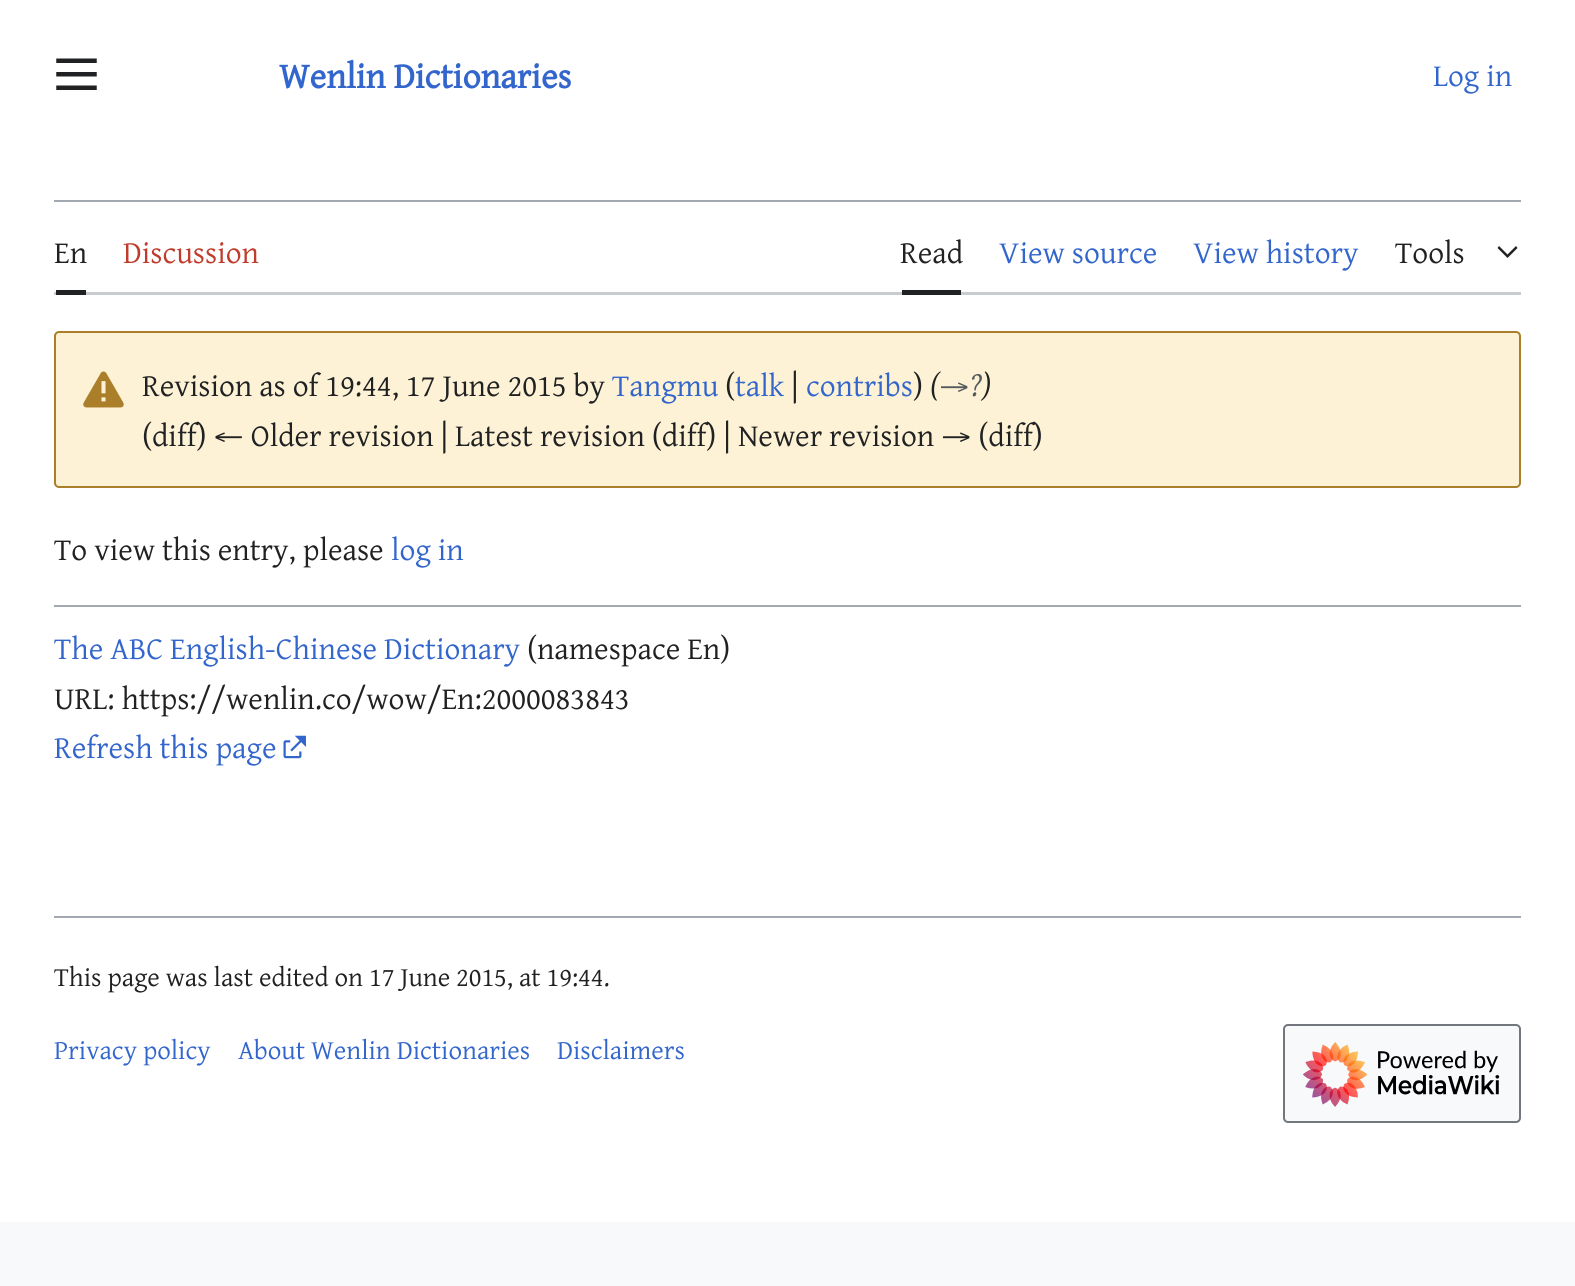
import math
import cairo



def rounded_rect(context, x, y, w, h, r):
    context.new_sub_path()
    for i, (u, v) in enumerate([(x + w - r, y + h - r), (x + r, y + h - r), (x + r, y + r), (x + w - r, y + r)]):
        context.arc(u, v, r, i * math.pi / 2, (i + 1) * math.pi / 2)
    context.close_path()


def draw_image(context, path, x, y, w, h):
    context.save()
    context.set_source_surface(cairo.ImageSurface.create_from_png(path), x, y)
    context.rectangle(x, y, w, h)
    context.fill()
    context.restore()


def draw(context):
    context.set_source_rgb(248 / 255, 249 / 255, 250 / 255)
    context.paint()
    context.set_source_rgb(1, 1, 1)
    context.rectangle(0, 0, 1575, 1222)
    context.fill()
    draw_image(context, "images/1.png", 56, 58, 41, 32)
    context.set_source_rgb(162 / 255, 169 / 255, 177 / 255)
    context.rectangle(54, 200, 1467, 2)
    context.fill()
    context.set_source_rgb(200 / 255, 204 / 255, 209 / 255)
    context.rectangle(54, 292, 1467, 3)
    context.fill()
    context.set_source_rgb(32 / 255, 33 / 255, 34 / 255)
    context.rectangle(56, 290, 30, 5)
    context.fill()
    context.rectangle(902, 290, 59, 5)
    context.fill()
    context.new_path()
    context.move_to(1516, 246)
    context.line_to(1507.5, 254.5)
    context.line_to(1499, 246)
    context.line_to(1497.5, 248)
    context.line_to(1507.5, 258)
    context.line_to(1517.5, 248)
    context.close_path()
    context.fill()
    context.set_source_rgb(253 / 255, 242 / 255, 213 / 255)
    rounded_rect(context, 55, 332, 1465, 155, 4)
    context.fill_preserve()
    context.set_source_rgb(171 / 255, 127 / 255, 42 / 255)
    context.stroke()
    draw_image(context, "images/2.png", 83, 371, 41, 37)
    context.set_source_rgb(162 / 255, 169 / 255, 177 / 255)
    context.rectangle(54, 605, 1467, 2)
    context.fill()
    draw_image(context, "images/3.png", 283, 735, 23, 24)
    context.rectangle(54, 916, 1467, 2)
    context.fill()
    context.set_source_rgb(248 / 255, 249 / 255, 250 / 255)
    rounded_rect(context, 1284, 1025, 236, 97, 4)
    context.fill_preserve()
    context.set_source_rgb(114 / 255, 119 / 255, 125 / 255)
    context.stroke()
    draw_image(context, "images/4.png", 1303, 1042, 197, 65)
    context.select_font_face("Gentium Plus", cairo.FontSlant.NORMAL, cairo.FontWeight.BOLD)
    context.set_font_size(36)
    context.set_source_rgb(51 / 255, 102 / 255, 204 / 255)
    context.move_to(279, 88)
    context.show_text("Wenlin Dictionaries")
    context.select_font_face("Gentium Plus")
    context.set_font_size(31.5)
    context.move_to(1433, 86)
    context.show_text("Log in")
    context.set_source_rgb(32 / 255, 33 / 255, 34 / 255)
    context.move_to(54, 263)
    context.show_text("En")
    context.set_source_rgb(191 / 255, 60 / 255, 44 / 255)
    context.move_to(123, 263)
    context.show_text("Discussion")
    context.set_source_rgb(32 / 255, 33 / 255, 34 / 255)
    context.move_to(900, 263)
    context.show_text("Read")
    context.set_source_rgb(51 / 255, 102 / 255, 204 / 255)
    context.move_to(999, 263)
    context.show_text("View source")
    context.move_to(1193, 263)
    context.show_text("View history")
    context.set_source_rgb(32 / 255, 33 / 255, 34 / 255)
    context.move_to(1395, 263)
    context.show_text("Tools")
    context.move_to(142, 396)
    context.show_text("Revision as of 19:44, 17 June 2015 by")
    context.set_source_rgb(51 / 255, 102 / 255, 204 / 255)
    context.move_to(612, 396)
    context.show_text("Tangmu")
    context.set_source_rgb(32 / 255, 33 / 255, 34 / 255)
    context.move_to(725, 396)
    context.show_text("(")
    context.set_source_rgb(51 / 255, 102 / 255, 204 / 255)
    context.move_to(735, 396)
    context.show_text("talk")
    context.set_source_rgb(32 / 255, 33 / 255, 34 / 255)
    context.move_to(791, 396)
    context.show_text("|")
    context.set_source_rgb(51 / 255, 102 / 255, 204 / 255)
    context.move_to(806, 396)
    context.show_text("contribs")
    context.set_source_rgb(32 / 255, 33 / 255, 34 / 255)
    context.move_to(913, 396)
    context.show_text(")")
    context.select_font_face("Gentium Plus", cairo.FontSlant.ITALIC)
    context.move_to(930, 396)
    context.show_text("(")
    context.set_source_rgb(84 / 255, 89 / 255, 93 / 255)
    context.move_to(939, 396)
    context.show_text("→?")
    context.set_source_rgb(32 / 255, 33 / 255, 34 / 255)
    context.move_to(982, 396)
    context.show_text(")")
    context.select_font_face("Gentium Plus")
    context.move_to(142, 446)
    context.show_text("(diff) ← Older revision | Latest revision (diff) | Newer revision → (diff)")
    context.move_to(54, 560)
    context.show_text("To view this entry, please")
    context.set_source_rgb(51 / 255, 102 / 255, 204 / 255)
    context.move_to(391, 560)
    context.show_text("log in")
    context.move_to(54, 659)
    context.show_text("The ABC English-Chinese Dictionary")
    context.set_source_rgb(32 / 255, 33 / 255, 34 / 255)
    context.move_to(527, 659)
    context.show_text("(namespace En)")
    context.move_to(54, 709)
    context.show_text("URL: https://wenlin.co/wow/En:2000083843")
    context.set_source_rgb(51 / 255, 102 / 255, 204 / 255)
    context.move_to(54, 758)
    context.show_text("Refresh this page")
    context.set_font_size(27)
    context.set_source_rgb(32 / 255, 33 / 255, 34 / 255)
    context.move_to(54, 986)
    context.show_text("This page was last edited on 17 June 2015, at 19:44.")
    context.set_source_rgb(51 / 255, 102 / 255, 204 / 255)
    context.move_to(54, 1059)
    context.show_text("Privacy policy")
    context.move_to(238, 1059)
    context.show_text("About Wenlin Dictionaries")
    context.move_to(557, 1059)
    context.show_text("Disclaimers")


surface = cairo.ImageSurface(cairo.Format.RGB24, 1575, 1286)
context = cairo.Context(surface)
options = cairo.FontOptions()
options.set_hint_metrics(cairo.HintMetrics.OFF)
options.set_hint_style(cairo.HintStyle.NONE)
context.set_font_options(options)
context.set_miter_limit(4)
draw(context)
surface.write_to_png("out.png")
